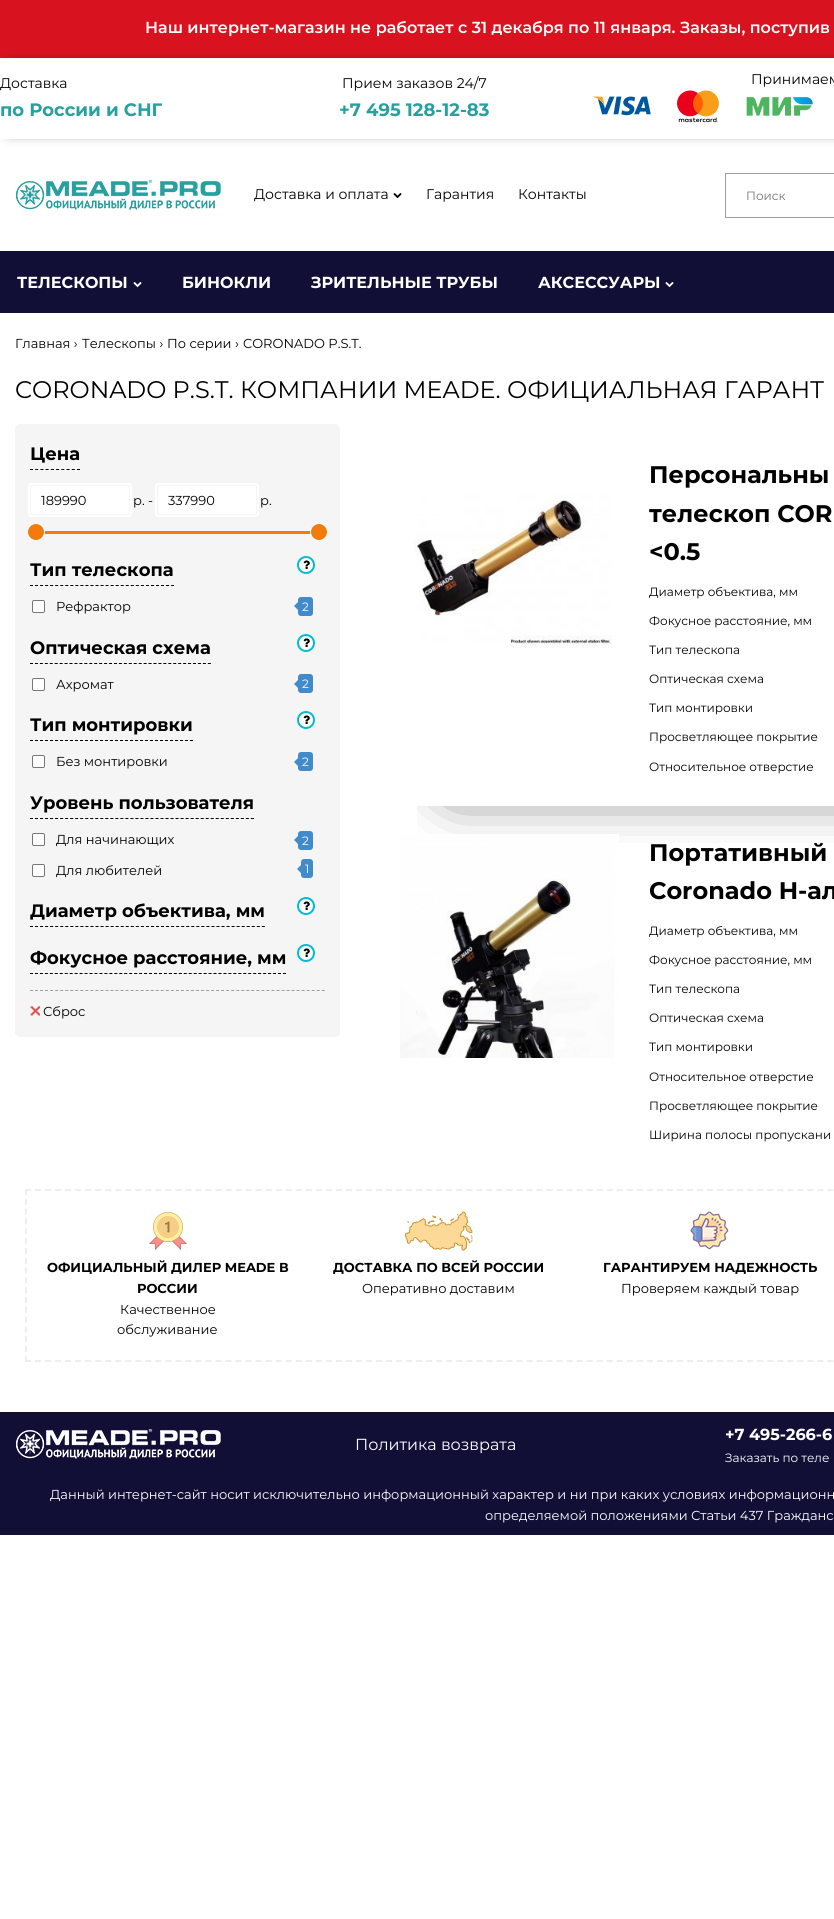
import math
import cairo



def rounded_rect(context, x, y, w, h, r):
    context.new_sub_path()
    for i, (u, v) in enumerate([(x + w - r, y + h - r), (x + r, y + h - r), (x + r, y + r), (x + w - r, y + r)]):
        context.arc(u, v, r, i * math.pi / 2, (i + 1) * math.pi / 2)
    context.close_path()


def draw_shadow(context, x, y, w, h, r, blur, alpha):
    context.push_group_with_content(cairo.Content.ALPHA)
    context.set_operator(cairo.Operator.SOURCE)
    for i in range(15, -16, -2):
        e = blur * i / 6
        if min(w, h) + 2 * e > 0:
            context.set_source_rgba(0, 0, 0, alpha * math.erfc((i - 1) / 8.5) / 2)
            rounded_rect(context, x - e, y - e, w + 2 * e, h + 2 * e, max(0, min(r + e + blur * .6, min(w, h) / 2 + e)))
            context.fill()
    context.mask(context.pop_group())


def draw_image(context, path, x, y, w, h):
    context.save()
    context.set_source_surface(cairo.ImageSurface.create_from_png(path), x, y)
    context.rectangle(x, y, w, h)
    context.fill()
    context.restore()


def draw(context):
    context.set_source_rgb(1, 1, 1)
    context.paint()
    context.set_source_rgb(217 / 255, 18 / 255, 31 / 255)
    context.rectangle(0, 0, 834, 58)
    context.fill()
    context.save()
    context.set_fill_rule(cairo.FillRule.EVEN_ODD)
    context.new_path()
    context.move_to(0, 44)
    context.line_to(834, 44)
    context.line_to(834, 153)
    context.line_to(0, 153)
    context.close_path()
    context.move_to(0, 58)
    context.line_to(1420, 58)
    context.line_to(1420, 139)
    context.line_to(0, 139)
    context.close_path()
    context.clip()
    context.set_source_rgb(0, 0, 0)
    draw_shadow(context, 10, 68, 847, 61, 0, 7.5, 1)
    context.restore()
    draw_image(context, "images/1.png", 593, 96, 58, 20)
    draw_image(context, "images/2.png", 677, 90, 42, 33)
    draw_image(context, "images/3.png", 746, 97, 67, 19)
    draw_image(context, "images/4.png", 16, 180, 205, 30)
    draw_image(context, "images/5.png", 393, 193, 9, 6)
    context.rectangle(725.5, 173.5, 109, 44)
    context.set_source_rgb(158 / 255, 158 / 255, 158 / 255)
    context.set_line_width(1)
    context.stroke()
    context.set_source_rgb(18 / 255, 15 / 255, 54 / 255)
    context.rectangle(0, 251, 834, 62)
    context.fill()
    draw_image(context, "images/6.png", 133, 282, 9, 6)
    draw_image(context, "images/6.png", 665, 282, 9, 6)
    context.set_source_rgb(245 / 255, 245 / 255, 245 / 255)
    rounded_rect(context, 15, 424, 325, 613, 5)
    context.fill()
    context.new_path()
    context.move_to(30, 469.5)
    context.line_to(80, 469.5)
    context.set_source_rgb(0, 0, 0)
    context.set_dash([3, 2.22])
    context.stroke()
    rounded_rect(context, 29, 484, 102, 32, 3)
    context.set_source_rgb(1, 1, 1)
    context.set_line_width(2)
    context.set_dash([])
    context.stroke()
    rounded_rect(context, 30.5, 485.5, 99, 29, 1.5)
    context.fill_preserve()
    context.set_source_rgb(245 / 255, 245 / 255, 245 / 255)
    context.set_line_width(1)
    context.stroke()
    rounded_rect(context, 156, 484, 102, 32, 3)
    context.set_source_rgb(1, 1, 1)
    context.set_line_width(2)
    context.stroke()
    rounded_rect(context, 157.5, 485.5, 99, 29, 1.5)
    context.fill_preserve()
    context.set_source_rgb(245 / 255, 245 / 255, 245 / 255)
    context.set_line_width(1)
    context.stroke()
    context.set_source_rgb(241 / 255, 124 / 255, 11 / 255)
    context.rectangle(36, 531, 283, 3)
    context.fill()
    context.arc(36, 532, 8.5, 0, 2 * math.pi)
    context.fill_preserve()
    context.set_source_rgb(1, 1, 1)
    context.stroke()
    context.set_source_rgb(241 / 255, 124 / 255, 11 / 255)
    context.arc(319, 532, 8.5, 0, 2 * math.pi)
    context.fill_preserve()
    context.set_source_rgb(1, 1, 1)
    context.stroke()
    context.new_path()
    context.move_to(30, 585.5)
    context.line_to(174, 585.5)
    context.set_source_rgb(0, 0, 0)
    context.set_dash([3, 2.04])
    context.stroke()
    context.set_source_rgb(1, 1, 1)
    context.arc(306, 565, 8, 0, 2 * math.pi)
    context.fill_preserve()
    context.set_source_rgb(0, 188 / 255, 212 / 255)
    context.set_line_width(2)
    context.set_dash([])
    context.stroke()
    draw_image(context, "images/7.png", 303, 560, 7, 9)
    context.set_source_rgb(1, 1, 1)
    rounded_rect(context, 32.5, 600.5, 12, 12, 1.5)
    context.fill_preserve()
    context.set_source_rgb(118 / 255, 118 / 255, 118 / 255)
    context.set_line_width(1)
    context.stroke()
    context.set_source_rgb(66 / 255, 139 / 255, 202 / 255)
    rounded_rect(context, 298, 597, 15, 19, 3)
    context.fill()
    context.new_path()
    context.move_to(298, 602)
    context.line_to(298, 610)
    context.line_to(294, 606)
    context.close_path()
    context.fill()
    context.new_path()
    context.move_to(30, 663.5)
    context.line_to(211, 663.5)
    context.set_source_rgb(0, 0, 0)
    context.set_dash([3, 1.94])
    context.stroke()
    context.set_source_rgb(1, 1, 1)
    context.arc(306, 643, 8, 0, 2 * math.pi)
    context.fill_preserve()
    context.set_source_rgb(0, 188 / 255, 212 / 255)
    context.set_line_width(2)
    context.set_dash([])
    context.stroke()
    draw_image(context, "images/7.png", 303, 638, 7, 9)
    context.set_source_rgb(1, 1, 1)
    rounded_rect(context, 32.5, 678.5, 12, 12, 1.5)
    context.fill_preserve()
    context.set_source_rgb(118 / 255, 118 / 255, 118 / 255)
    context.set_line_width(1)
    context.stroke()
    context.set_source_rgb(66 / 255, 139 / 255, 202 / 255)
    rounded_rect(context, 298, 674, 15, 19, 3)
    context.fill()
    context.new_path()
    context.move_to(298, 680)
    context.line_to(298, 688)
    context.line_to(294, 684)
    context.close_path()
    context.fill()
    context.new_path()
    context.move_to(30, 740.5)
    context.line_to(193, 740.5)
    context.set_source_rgb(0, 0, 0)
    context.set_dash([3, 2])
    context.stroke()
    context.set_source_rgb(1, 1, 1)
    context.arc(306, 720, 8, 0, 2 * math.pi)
    context.fill_preserve()
    context.set_source_rgb(0, 188 / 255, 212 / 255)
    context.set_line_width(2)
    context.set_dash([])
    context.stroke()
    draw_image(context, "images/7.png", 303, 715, 7, 9)
    context.set_source_rgb(1, 1, 1)
    rounded_rect(context, 32.5, 755.5, 12, 12, 1.5)
    context.fill_preserve()
    context.set_source_rgb(118 / 255, 118 / 255, 118 / 255)
    context.set_line_width(1)
    context.stroke()
    context.set_source_rgb(66 / 255, 139 / 255, 202 / 255)
    rounded_rect(context, 298, 752, 15, 19, 3)
    context.fill()
    context.new_path()
    context.move_to(298, 758)
    context.line_to(298, 766)
    context.line_to(294, 762)
    context.close_path()
    context.fill()
    context.new_path()
    context.move_to(30, 818.5)
    context.line_to(254, 818.5)
    context.set_source_rgb(0, 0, 0)
    context.set_dash([3, 2.02])
    context.stroke()
    context.set_source_rgb(1, 1, 1)
    rounded_rect(context, 32.5, 833.5, 12, 12, 1.5)
    context.fill_preserve()
    context.set_source_rgb(118 / 255, 118 / 255, 118 / 255)
    context.set_dash([])
    context.stroke()
    context.set_source_rgb(66 / 255, 139 / 255, 202 / 255)
    rounded_rect(context, 298, 831, 15, 19, 3)
    context.fill()
    context.new_path()
    context.move_to(298, 836)
    context.line_to(298, 844)
    context.line_to(294, 840)
    context.close_path()
    context.fill()
    context.set_source_rgb(1, 1, 1)
    rounded_rect(context, 32.5, 864.5, 12, 12, 1.5)
    context.fill_preserve()
    context.set_source_rgb(118 / 255, 118 / 255, 118 / 255)
    context.stroke()
    context.set_source_rgb(66 / 255, 139 / 255, 202 / 255)
    rounded_rect(context, 301, 859, 12, 19, 3)
    context.fill()
    context.new_path()
    context.move_to(301, 865)
    context.line_to(301, 873)
    context.line_to(297, 869)
    context.close_path()
    context.fill()
    context.new_path()
    context.move_to(30, 926.5)
    context.line_to(265, 926.5)
    context.set_source_rgb(0, 0, 0)
    context.set_dash([3, 2.04])
    context.stroke()
    context.set_source_rgb(1, 1, 1)
    context.arc(306, 906, 8, 0, 2 * math.pi)
    context.fill_preserve()
    context.set_source_rgb(0, 188 / 255, 212 / 255)
    context.set_line_width(2)
    context.set_dash([])
    context.stroke()
    draw_image(context, "images/7.png", 303, 901, 7, 9)
    context.new_path()
    context.move_to(30, 973.5)
    context.line_to(286, 973.5)
    context.set_source_rgb(0, 0, 0)
    context.set_line_width(1)
    context.set_dash([3, 1.96])
    context.stroke()
    context.set_source_rgb(1, 1, 1)
    context.arc(306, 953, 8, 0, 2 * math.pi)
    context.fill_preserve()
    context.set_source_rgb(0, 188 / 255, 212 / 255)
    context.set_line_width(2)
    context.set_dash([])
    context.stroke()
    draw_image(context, "images/7.png", 303, 948, 7, 9)
    context.new_path()
    context.move_to(30, 990.5)
    context.line_to(325, 990.5)
    context.set_source_rgb(158 / 255, 158 / 255, 158 / 255)
    context.set_line_width(1)
    context.set_dash([3, 2.03])
    context.stroke()
    draw_image(context, "images/8.png", 30, 1006, 10, 10)
    context.save()
    context.rectangle(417, 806, 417, 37)
    context.clip()
    context.set_source_rgb(0, 0, 0)
    draw_shadow(context, 455, 571, 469, 210, 0, 30, 1)
    context.restore()
    draw_image(context, "images/9.png", 414, 494, 198, 154)
    draw_image(context, "images/10.png", 400, 834, 219, 224)
    context.new_path()
    context.move_to(25, 1190)
    context.line_to(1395, 1190)
    context.set_source_rgb(238 / 255, 238 / 255, 238 / 255)
    context.set_line_width(2)
    context.set_dash([6, 4.03])
    context.stroke()
    context.new_path()
    context.move_to(25, 1361)
    context.line_to(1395, 1361)
    context.stroke()
    context.new_path()
    context.move_to(26, 1189)
    context.line_to(26, 1362)
    context.set_dash([6, 3.82])
    context.stroke()
    draw_image(context, "images/11.png", 149, 1212, 38, 38)
    draw_image(context, "images/12.png", 405, 1211, 68, 40)
    draw_image(context, "images/13.png", 690, 1211, 39, 39)
    context.set_source_rgb(18 / 255, 15 / 255, 54 / 255)
    context.rectangle(0, 1412, 834, 123)
    context.fill()
    draw_image(context, "images/14.png", 16, 1429, 205, 30)
    context.select_font_face("Montserrat SemiBold")
    context.set_font_size(16)
    context.set_source_rgb(1, 1, 1)
    context.move_to(145, 33)
    context.show_text("Наш интернет-магазин не работает с 31 декабря по 11 января. Заказы, поступив")
    context.select_font_face("Montserrat")
    context.set_font_size(14)
    context.set_source_rgb(0, 0, 0)
    context.move_to(0, 88)
    context.show_text("Доставка")
    context.select_font_face("Montserrat", cairo.FontSlant.NORMAL, cairo.FontWeight.BOLD)
    context.set_font_size(18)
    context.set_source_rgb(40 / 255, 160 / 255, 160 / 255)
    context.move_to(0, 116)
    context.show_text("по России и СНГ")
    context.select_font_face("Montserrat")
    context.set_font_size(14)
    context.set_source_rgb(0, 0, 0)
    context.move_to(342, 88)
    context.show_text("Прием заказов 24/7")
    context.select_font_face("Montserrat", cairo.FontSlant.NORMAL, cairo.FontWeight.BOLD)
    context.set_font_size(18)
    context.set_source_rgb(40 / 255, 160 / 255, 160 / 255)
    context.move_to(339, 116)
    context.show_text("+7 495 128-12-83")
    context.select_font_face("Montserrat")
    context.set_font_size(14)
    context.set_source_rgb(0, 0, 0)
    context.move_to(751, 84)
    context.show_text("Принимаем")
    context.move_to(254, 199)
    context.show_text("Доставка и оплата")
    context.move_to(426, 199)
    context.show_text("Гарантия")
    context.move_to(518, 199)
    context.show_text("Контакты")
    context.set_font_size(12)
    context.set_source_rgb(117 / 255, 117 / 255, 117 / 255)
    context.move_to(746, 200)
    context.show_text("Поиск")
    context.select_font_face("Montserrat", cairo.FontSlant.NORMAL, cairo.FontWeight.BOLD)
    context.set_font_size(16)
    context.set_source_rgb(1, 1, 1)
    context.move_to(17, 288)
    context.show_text("ТЕЛЕСКОПЫ")
    context.move_to(182, 288)
    context.show_text("БИНОКЛИ")
    context.move_to(311, 288)
    context.show_text("ЗРИТЕЛЬНЫЕ ТРУБЫ")
    context.move_to(538, 288)
    context.show_text("АКСЕССУАРЫ")
    context.select_font_face("Montserrat")
    context.set_font_size(13)
    context.set_source_rgb(0, 0, 0)
    context.move_to(15, 348)
    context.show_text("Главная ›")
    context.move_to(82, 348)
    context.show_text("Телескопы ›")
    context.move_to(167, 348)
    context.show_text("По серии ›")
    context.move_to(243, 348)
    context.show_text("CORONADO P.S.T.")
    context.set_font_size(24)
    context.move_to(15, 398)
    context.show_text("CORONADO P.S.T. КОМПАНИИ MEADE. ОФИЦИАЛЬНАЯ ГАРАНТ")
    context.select_font_face("Montserrat", cairo.FontSlant.NORMAL, cairo.FontWeight.BOLD)
    context.set_font_size(18)
    context.move_to(30, 460)
    context.show_text("Цена")
    context.select_font_face("Montserrat")
    context.set_font_size(13)
    context.move_to(41, 505)
    context.show_text("189990")
    context.move_to(133, 505)
    context.show_text("р. -")
    context.move_to(168, 505)
    context.show_text("337990")
    context.move_to(260, 505)
    context.show_text("р.")
    context.select_font_face("Montserrat", cairo.FontSlant.NORMAL, cairo.FontWeight.BOLD)
    context.set_font_size(18)
    context.move_to(30, 576)
    context.show_text("Тип телескопа")
    context.select_font_face("Montserrat")
    context.set_font_size(13)
    context.move_to(56, 611)
    context.show_text("Рефрактор")
    context.set_font_size(12)
    context.set_source_rgb(1, 1, 1)
    context.move_to(302, 611)
    context.show_text("2")
    context.select_font_face("Montserrat", cairo.FontSlant.NORMAL, cairo.FontWeight.BOLD)
    context.set_font_size(18)
    context.set_source_rgb(0, 0, 0)
    context.move_to(30, 654)
    context.show_text("Оптическая схема")
    context.select_font_face("Montserrat")
    context.set_font_size(13)
    context.move_to(56, 689)
    context.show_text("Ахромат")
    context.set_font_size(12)
    context.set_source_rgb(1, 1, 1)
    context.move_to(302, 688)
    context.show_text("2")
    context.select_font_face("Montserrat", cairo.FontSlant.NORMAL, cairo.FontWeight.BOLD)
    context.set_font_size(18)
    context.set_source_rgb(0, 0, 0)
    context.move_to(30, 731)
    context.show_text("Тип монтировки")
    context.select_font_face("Montserrat")
    context.set_font_size(13)
    context.move_to(56, 766)
    context.show_text("Без монтировки")
    context.set_font_size(12)
    context.set_source_rgb(1, 1, 1)
    context.move_to(302, 766)
    context.show_text("2")
    context.select_font_face("Montserrat", cairo.FontSlant.NORMAL, cairo.FontWeight.BOLD)
    context.set_font_size(18)
    context.set_source_rgb(0, 0, 0)
    context.move_to(30, 809)
    context.show_text("Уровень пользователя")
    context.select_font_face("Montserrat")
    context.set_font_size(13)
    context.move_to(56, 844)
    context.show_text("Для начинающих")
    context.set_font_size(12)
    context.set_source_rgb(1, 1, 1)
    context.move_to(302, 845)
    context.show_text("2")
    context.set_font_size(13)
    context.set_source_rgb(0, 0, 0)
    context.move_to(56, 875)
    context.show_text("Для любителей")
    context.set_font_size(12)
    context.set_source_rgb(1, 1, 1)
    context.move_to(305, 873)
    context.show_text("1")
    context.select_font_face("Montserrat", cairo.FontSlant.NORMAL, cairo.FontWeight.BOLD)
    context.set_font_size(18)
    context.set_source_rgb(0, 0, 0)
    context.move_to(30, 917)
    context.show_text("Диаметр объектива, мм")
    context.move_to(30, 964)
    context.show_text("Фокусное расстояние, мм")
    context.select_font_face("Montserrat")
    context.set_font_size(13)
    context.move_to(43, 1016)
    context.show_text("Сброс")
    context.select_font_face("Montserrat", cairo.FontSlant.NORMAL, cairo.FontWeight.BOLD)
    context.set_font_size(24)
    context.move_to(649, 483)
    context.show_text("Персональны")
    context.move_to(649, 522)
    context.show_text("телескоп COR")
    context.move_to(649, 560)
    context.show_text("<0.5")
    context.select_font_face("Montserrat")
    context.set_font_size(12)
    context.move_to(649, 596)
    context.show_text("Диаметр объектива, мм")
    context.move_to(649, 625)
    context.show_text("Фокусное расстояние, мм")
    context.move_to(649, 654)
    context.show_text("Тип телескопа")
    context.move_to(649, 683)
    context.show_text("Оптическая схема")
    context.move_to(649, 712)
    context.show_text("Тип монтировки")
    context.move_to(649, 741)
    context.show_text("Просветляющее покрытие")
    context.move_to(649, 771)
    context.show_text("Относительное отверстие")
    context.select_font_face("Montserrat", cairo.FontSlant.NORMAL, cairo.FontWeight.BOLD)
    context.set_font_size(24)
    context.move_to(649, 861)
    context.show_text("Портативный")
    context.move_to(649, 899)
    context.show_text("Coronado H-ал")
    context.select_font_face("Montserrat")
    context.set_font_size(12)
    context.move_to(649, 935)
    context.show_text("Диаметр объектива, мм")
    context.move_to(649, 964)
    context.show_text("Фокусное расстояние, мм")
    context.move_to(649, 993)
    context.show_text("Тип телескопа")
    context.move_to(649, 1022)
    context.show_text("Оптическая схема")
    context.move_to(649, 1051)
    context.show_text("Тип монтировки")
    context.move_to(649, 1081)
    context.show_text("Относительное отверстие")
    context.move_to(649, 1110)
    context.show_text("Просветляющее покрытие")
    context.move_to(649, 1139)
    context.show_text("Ширина полосы пропускани")
    context.select_font_face("Montserrat", cairo.FontSlant.NORMAL, cairo.FontWeight.BOLD)
    context.set_font_size(13)
    context.move_to(47, 1272)
    context.show_text("ОФИЦИАЛЬНЫЙ ДИЛЕР MEADE В")
    context.move_to(137, 1293)
    context.show_text("РОССИИ")
    context.select_font_face("Montserrat")
    context.move_to(120, 1314)
    context.show_text("Качественное")
    context.move_to(117, 1334)
    context.show_text("обслуживание")
    context.select_font_face("Montserrat", cairo.FontSlant.NORMAL, cairo.FontWeight.BOLD)
    context.move_to(333, 1272)
    context.show_text("ДОСТАВКА ПО ВСЕЙ РОССИИ")
    context.select_font_face("Montserrat")
    context.move_to(362, 1293)
    context.show_text("Оперативно доставим")
    context.select_font_face("Montserrat", cairo.FontSlant.NORMAL, cairo.FontWeight.BOLD)
    context.move_to(603, 1272)
    context.show_text("ГАРАНТИРУЕМ НАДЕЖНОСТЬ")
    context.select_font_face("Montserrat")
    context.move_to(621, 1293)
    context.show_text("Проверяем каждый товар")
    context.set_font_size(16)
    context.set_source_rgb(1, 1, 1)
    context.move_to(355, 1450)
    context.show_text("Политика возврата")
    context.select_font_face("Montserrat", cairo.FontSlant.NORMAL, cairo.FontWeight.BOLD)
    context.move_to(725, 1440)
    context.show_text("+7 495-266-6")
    context.select_font_face("Montserrat")
    context.set_font_size(12)
    context.move_to(725, 1462)
    context.show_text("Заказать по теле")
    context.set_font_size(13)
    context.move_to(50, 1499)
    context.show_text("Данный интернет-сайт носит исключительно информационный характер и ни при каких условиях информационн")
    context.move_to(485, 1520)
    context.show_text("определяемой положениями Статьи 437 Гражданс")


surface = cairo.ImageSurface(cairo.Format.RGB24, 834, 1919)
context = cairo.Context(surface)
options = cairo.FontOptions()
options.set_hint_metrics(cairo.HintMetrics.OFF)
options.set_hint_style(cairo.HintStyle.NONE)
context.set_font_options(options)
context.set_miter_limit(4)
draw(context)
surface.write_to_png("out.png")
